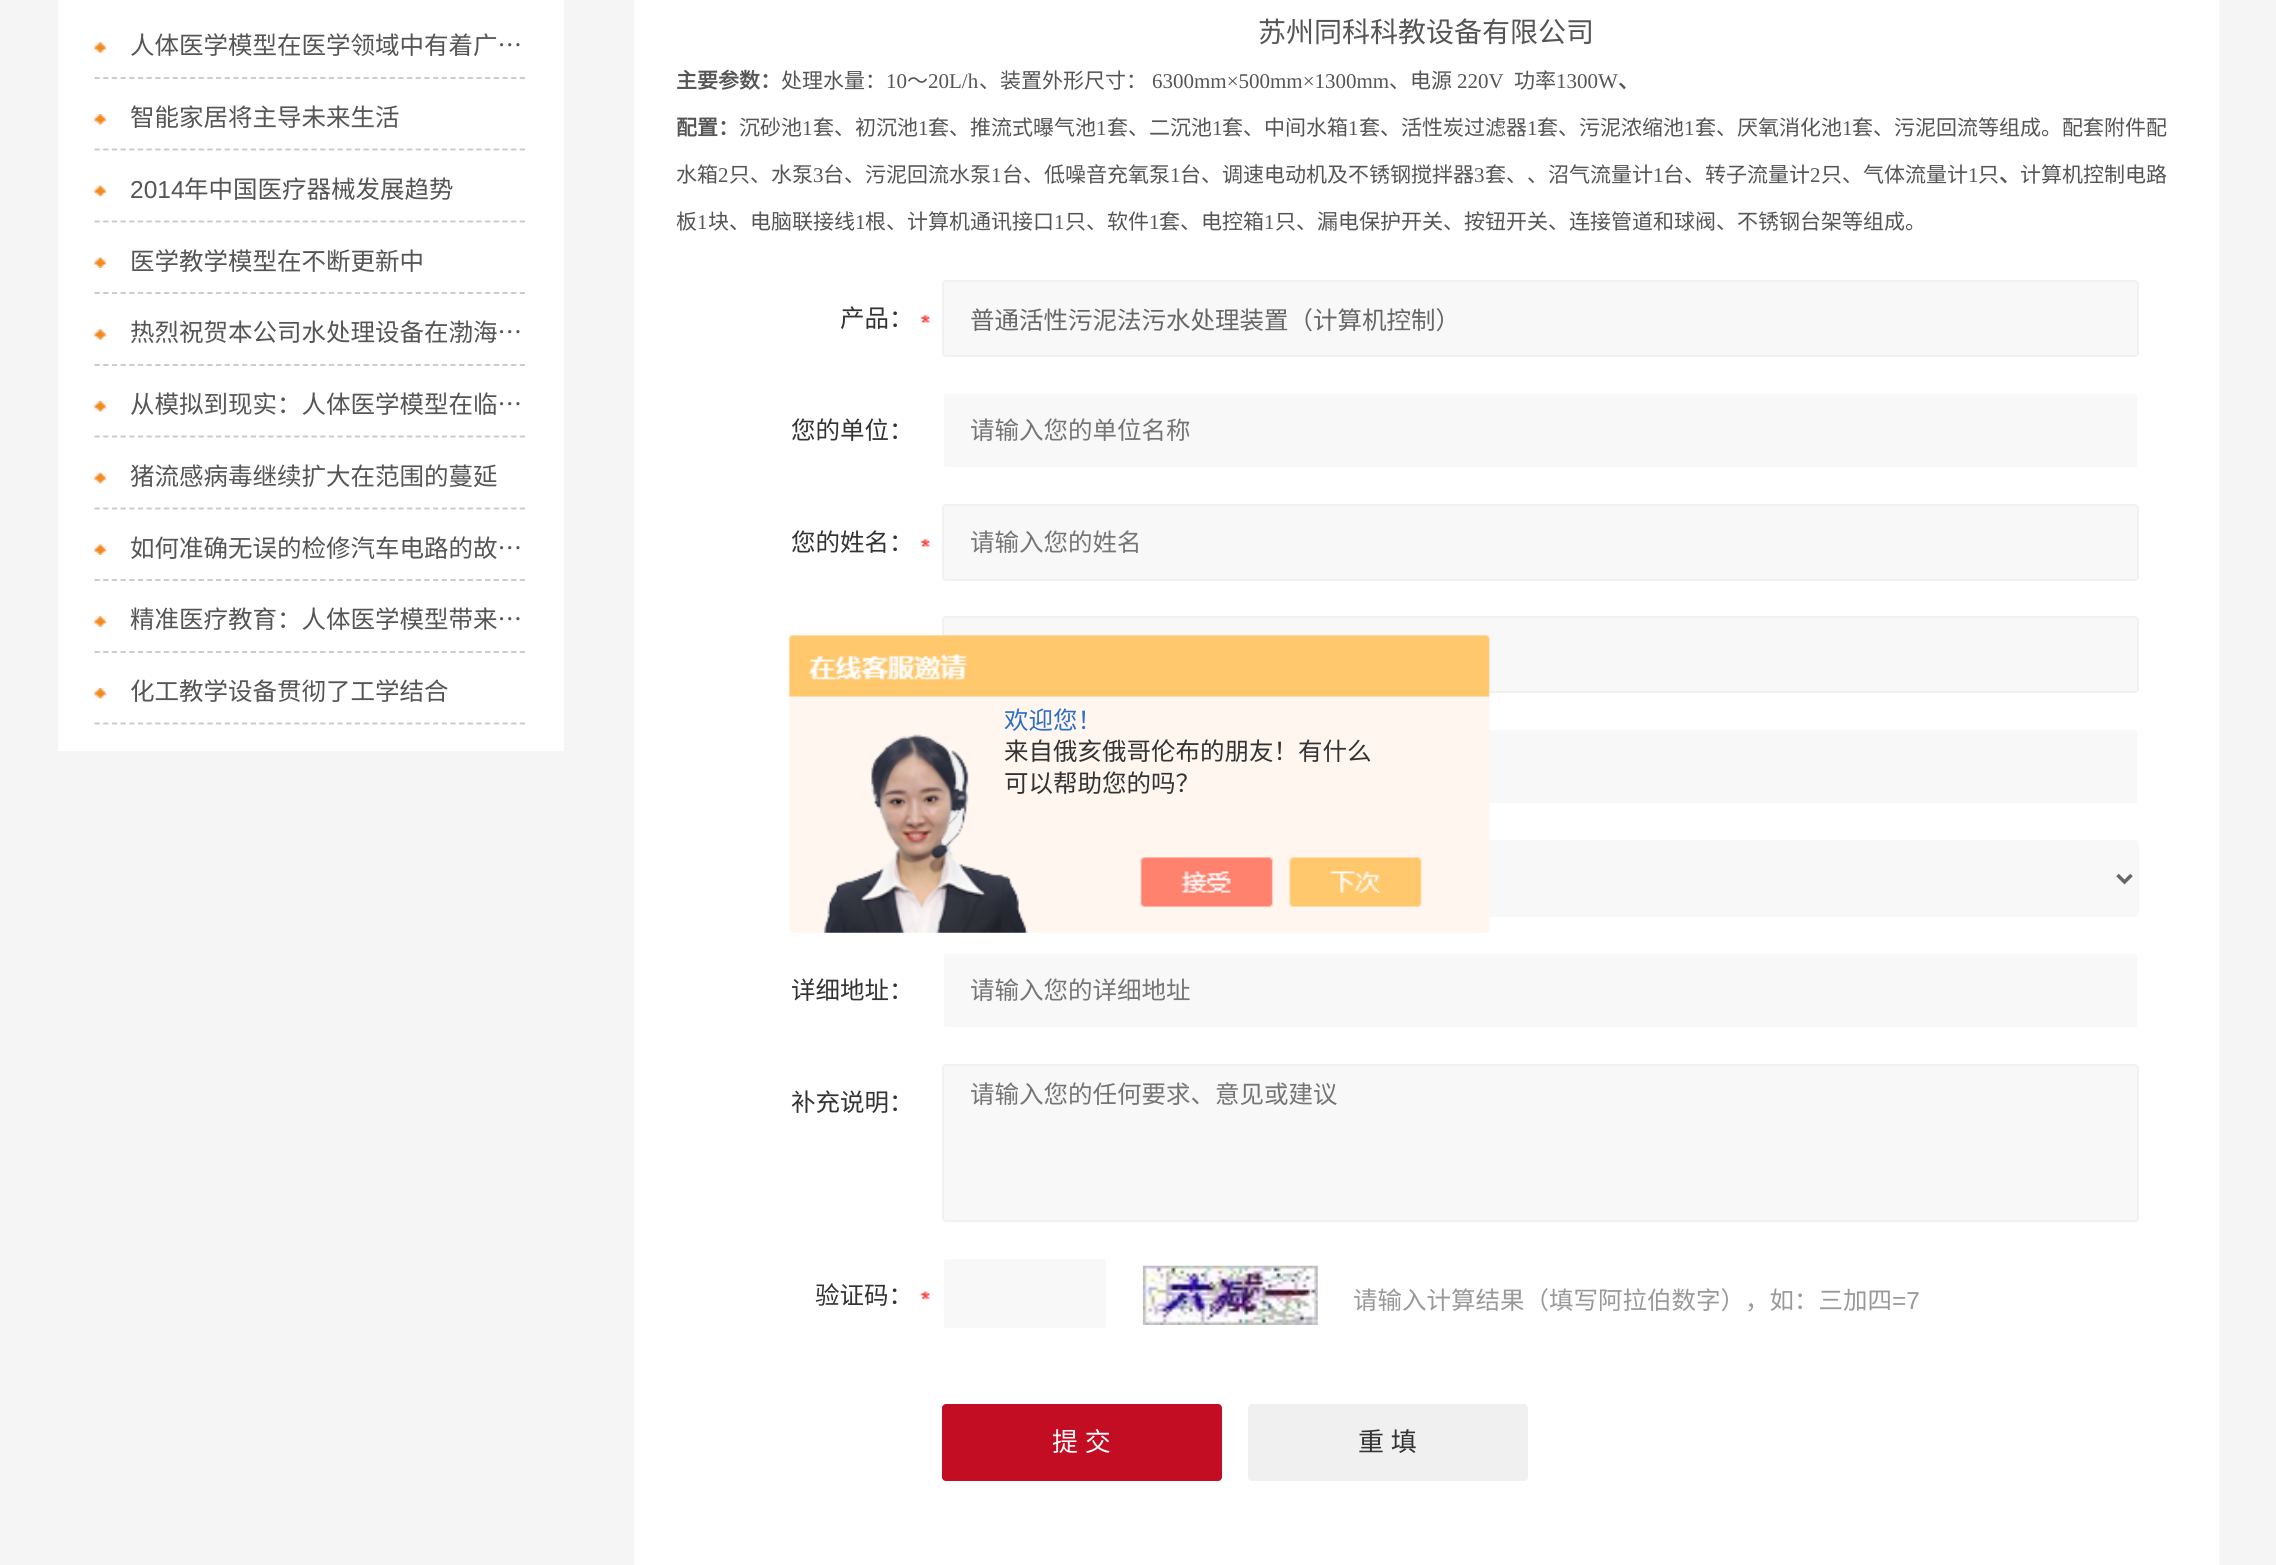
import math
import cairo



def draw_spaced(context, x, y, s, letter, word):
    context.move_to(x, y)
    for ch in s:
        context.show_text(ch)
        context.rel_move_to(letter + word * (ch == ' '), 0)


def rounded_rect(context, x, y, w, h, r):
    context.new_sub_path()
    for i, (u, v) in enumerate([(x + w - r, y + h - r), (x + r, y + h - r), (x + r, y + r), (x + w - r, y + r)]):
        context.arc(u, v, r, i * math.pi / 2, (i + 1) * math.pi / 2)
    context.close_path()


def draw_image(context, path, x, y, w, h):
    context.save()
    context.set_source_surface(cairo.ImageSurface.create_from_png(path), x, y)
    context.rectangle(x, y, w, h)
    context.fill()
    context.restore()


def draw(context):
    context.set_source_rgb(245 / 255, 245 / 255, 245 / 255)
    context.paint()
    context.set_source_rgb(1, 1, 1)
    context.rectangle(58, 0, 506, 751)
    context.fill()
    draw_image(context, "images/1.png", 94, 42, 13, 11)
    context.new_path()
    context.move_to(94.5, 78)
    context.line_to(525, 78)
    context.set_source_rgb(199 / 255, 199 / 255, 199 / 255)
    context.set_line_width(1.8)
    context.set_dash([5.25, 3.43])
    context.stroke()
    draw_image(context, "images/2.png", 94, 114, 13, 11)
    context.new_path()
    context.move_to(94.5, 149.5)
    context.line_to(525, 149.5)
    context.stroke()
    draw_image(context, "images/3.png", 94, 185, 13, 12)
    context.new_path()
    context.move_to(94.5, 221.5)
    context.line_to(525, 221.5)
    context.stroke()
    draw_image(context, "images/4.png", 94, 257, 13, 11)
    context.new_path()
    context.move_to(94.5, 293)
    context.line_to(525, 293)
    context.stroke()
    draw_image(context, "images/1.png", 94, 329, 13, 11)
    context.new_path()
    context.move_to(94.5, 365)
    context.line_to(525, 365)
    context.stroke()
    draw_image(context, "images/2.png", 94, 401, 13, 11)
    context.new_path()
    context.move_to(94.5, 436.5)
    context.line_to(525, 436.5)
    context.stroke()
    draw_image(context, "images/3.png", 94, 472, 13, 12)
    context.new_path()
    context.move_to(94.5, 508.5)
    context.line_to(525, 508.5)
    context.stroke()
    draw_image(context, "images/4.png", 94, 544, 13, 11)
    context.new_path()
    context.move_to(94.5, 580)
    context.line_to(525, 580)
    context.stroke()
    draw_image(context, "images/1.png", 94, 616, 13, 11)
    context.new_path()
    context.move_to(94.5, 652)
    context.line_to(525, 652)
    context.stroke()
    draw_image(context, "images/2.png", 94, 688, 13, 11)
    context.new_path()
    context.move_to(94.5, 723.5)
    context.line_to(525, 723.5)
    context.stroke()
    context.set_source_rgb(1, 1, 1)
    context.rectangle(634, 0, 1585, 1565)
    context.fill()
    draw_image(context, "images/5.png", 920, 314, 10, 9)
    context.set_source_rgb(248 / 255, 248 / 255, 248 / 255)
    rounded_rect(context, 943, 281, 1195, 75, 3)
    context.fill_preserve()
    context.set_source_rgb(241 / 255, 241 / 255, 241 / 255)
    context.set_line_width(2)
    context.set_dash([])
    context.stroke()
    context.set_source_rgb(248 / 255, 248 / 255, 248 / 255)
    rounded_rect(context, 943, 393, 1195, 75, 3)
    context.fill_preserve()
    context.set_source_rgb(1, 1, 1)
    context.stroke()
    draw_image(context, "images/5.png", 920, 538, 10, 9)
    context.set_source_rgb(248 / 255, 248 / 255, 248 / 255)
    rounded_rect(context, 943, 505, 1195, 75, 3)
    context.fill_preserve()
    context.set_source_rgb(241 / 255, 241 / 255, 241 / 255)
    context.stroke()
    context.set_source_rgb(248 / 255, 248 / 255, 248 / 255)
    rounded_rect(context, 943, 617, 1195, 75, 3)
    context.fill_preserve()
    context.set_source_rgb(241 / 255, 241 / 255, 241 / 255)
    context.stroke()
    context.set_source_rgb(248 / 255, 248 / 255, 248 / 255)
    rounded_rect(context, 943, 729, 1195, 75, 3)
    context.fill_preserve()
    context.set_source_rgb(1, 1, 1)
    context.stroke()
    context.set_source_rgb(248 / 255, 248 / 255, 248 / 255)
    rounded_rect(context, 942, 840, 1197, 77, 4)
    context.fill()
    context.new_path()
    context.move_to(2117.5, 875)
    context.line_to(2124.5, 882)
    context.line_to(2131.5, 875)
    context.set_source_rgb(102 / 255, 102 / 255, 102 / 255)
    context.set_line_width(3.5)
    context.stroke()
    context.set_source_rgb(248 / 255, 248 / 255, 248 / 255)
    rounded_rect(context, 943, 953, 1195, 75, 3)
    context.fill_preserve()
    context.set_source_rgb(1, 1, 1)
    context.set_line_width(2)
    context.stroke()
    context.set_source_rgb(248 / 255, 248 / 255, 248 / 255)
    rounded_rect(context, 943, 1065, 1195, 156, 3)
    context.fill_preserve()
    context.set_source_rgb(241 / 255, 241 / 255, 241 / 255)
    context.stroke()
    draw_image(context, "images/6.png", 920, 1291, 10, 9)
    context.set_source_rgb(248 / 255, 248 / 255, 248 / 255)
    rounded_rect(context, 943, 1258, 164, 71, 3)
    context.fill_preserve()
    context.set_source_rgb(1, 1, 1)
    context.stroke()
    draw_image(context, "images/7.png", 1142, 1265, 176, 60)
    context.set_source_rgb(195 / 255, 13 / 255, 35 / 255)
    rounded_rect(context, 942, 1404, 280, 77, 4)
    context.fill()
    context.set_source_rgb(240 / 255, 240 / 255, 240 / 255)
    rounded_rect(context, 1248, 1404, 280, 77, 4)
    context.fill()
    draw_image(context, "images/8.png", 788, 634, 702, 299)
    context.select_font_face("Noto Sans CJK SC")
    context.set_font_size(24.5)
    context.set_source_rgb(85 / 255, 85 / 255, 85 / 255)
    context.move_to(130, 54)
    context.show_text("人体医学模型在医学领域中有着广…")
    context.move_to(130, 126)
    context.show_text("智能家居将主导未来生活")
    context.select_font_face("Liberation Sans")
    context.move_to(130, 198)
    context.show_text("2014")
    context.select_font_face("Noto Sans CJK SC")
    context.move_to(184, 198)
    context.show_text("年中国医疗器械发展趋势")
    context.move_to(130, 270)
    context.show_text("医学教学模型在不断更新中")
    context.move_to(130, 341)
    context.show_text("热烈祝贺本公司水处理设备在渤海…")
    context.move_to(130, 413)
    context.show_text("从模拟到现实：人体医学模型在临…")
    context.move_to(130, 485)
    context.show_text("猪流感病毒继续扩大在范围的蔓延")
    context.move_to(130, 557)
    context.show_text("如何准确无误的检修汽车电路的故…")
    context.move_to(130, 628)
    context.show_text("精准医疗教育：人体医学模型带来…")
    context.move_to(130, 700)
    context.show_text("化工教学设备贯彻了工学结合")
    context.set_font_size(28)
    context.move_to(1258, 42)
    context.show_text("苏州同科科教设备有限公司")
    context.select_font_face("Noto Sans CJK SC", cairo.FontSlant.NORMAL, cairo.FontWeight.BOLD)
    context.set_font_size(21)
    context.move_to(676, 88)
    context.show_text("主要参数：")
    context.select_font_face("Noto Sans CJK SC")
    context.move_to(781, 88)
    context.show_text("处理水量：")
    context.select_font_face("Liberation Serif")
    context.move_to(886, 88)
    context.show_text("10")
    context.select_font_face("Noto Sans CJK SC")
    context.move_to(907, 88)
    context.show_text("～")
    context.select_font_face("Liberation Serif")
    context.move_to(928, 88)
    context.show_text("20L/h")
    context.select_font_face("Noto Sans CJK SC")
    context.move_to(979, 88)
    context.show_text("、装置外形尺寸：")
    context.select_font_face("Liberation Serif")
    context.move_to(1152, 88)
    context.show_text("6300mm×500mm×1300mm")
    context.select_font_face("Noto Sans CJK SC")
    context.move_to(1389, 88)
    context.show_text("、电源")
    context.select_font_face("Liberation Serif")
    context.move_to(1457, 88)
    context.show_text("220V")
    context.select_font_face("Noto Sans CJK SC")
    context.move_to(1514, 88)
    context.show_text("功率")
    context.select_font_face("Liberation Serif")
    context.move_to(1556, 88)
    context.show_text("1300W")
    context.select_font_face("Noto Sans CJK SC", cairo.FontSlant.NORMAL, cairo.FontWeight.BOLD)
    context.move_to(1618, 88)
    context.show_text("、")
    context.move_to(676, 135)
    context.show_text("配置：")
    context.select_font_face("Noto Sans CJK SC")
    context.move_to(739, 135)
    context.show_text("沉砂池")
    context.select_font_face("Liberation Serif")
    context.move_to(802, 135)
    context.show_text("1")
    context.select_font_face("Noto Sans CJK SC")
    context.move_to(813, 135)
    context.show_text("套、初沉池")
    context.select_font_face("Liberation Serif")
    context.move_to(918, 135)
    context.show_text("1")
    context.select_font_face("Noto Sans CJK SC")
    context.move_to(928, 135)
    context.show_text("套、推流式曝气池")
    context.select_font_face("Liberation Serif")
    context.move_to(1096, 135)
    context.show_text("1")
    context.select_font_face("Noto Sans CJK SC")
    context.move_to(1107, 135)
    context.show_text("套、二沉池")
    context.select_font_face("Liberation Serif")
    context.move_to(1212, 135)
    context.show_text("1")
    context.select_font_face("Noto Sans CJK SC")
    context.move_to(1222, 135)
    context.show_text("套、中间水箱")
    context.select_font_face("Liberation Serif")
    context.move_to(1348, 135)
    context.show_text("1")
    context.select_font_face("Noto Sans CJK SC")
    context.move_to(1359, 135)
    context.show_text("套、活性炭过滤器")
    context.select_font_face("Liberation Serif")
    context.move_to(1527, 135)
    context.show_text("1")
    context.select_font_face("Noto Sans CJK SC")
    context.move_to(1537, 135)
    context.show_text("套、污泥浓缩池")
    context.select_font_face("Liberation Serif")
    context.move_to(1684, 135)
    context.show_text("1")
    context.select_font_face("Noto Sans CJK SC")
    context.move_to(1695, 135)
    context.show_text("套、厌氧消化池")
    context.select_font_face("Liberation Serif")
    context.move_to(1842, 135)
    context.show_text("1")
    context.select_font_face("Noto Sans CJK SC")
    context.move_to(1852, 135)
    context.show_text("套、污泥回流等组成。配套附件配")
    context.move_to(676, 182)
    context.show_text("水箱")
    context.select_font_face("Liberation Serif")
    context.move_to(718, 182)
    context.show_text("2")
    context.select_font_face("Noto Sans CJK SC")
    context.move_to(729, 182)
    context.show_text("只、水泵")
    context.select_font_face("Liberation Serif")
    context.move_to(813, 182)
    context.show_text("3")
    context.select_font_face("Noto Sans CJK SC")
    context.move_to(823, 182)
    context.show_text("台、污泥回流水泵")
    context.select_font_face("Liberation Serif")
    context.move_to(991, 182)
    context.show_text("1")
    context.select_font_face("Noto Sans CJK SC")
    context.move_to(1002, 182)
    context.show_text("台、低噪音充氧泵")
    context.select_font_face("Liberation Serif")
    context.move_to(1170, 182)
    context.show_text("1")
    context.select_font_face("Noto Sans CJK SC")
    context.move_to(1180, 182)
    context.show_text("台、调速电动机及不锈钢搅拌器")
    context.select_font_face("Liberation Serif")
    context.move_to(1474, 182)
    context.show_text("3")
    context.select_font_face("Noto Sans CJK SC")
    context.move_to(1485, 182)
    context.show_text("套、、沼气流量计")
    context.select_font_face("Liberation Serif")
    context.move_to(1653, 182)
    context.show_text("1")
    context.select_font_face("Noto Sans CJK SC")
    context.move_to(1663, 182)
    context.show_text("台、转子流量计")
    context.select_font_face("Liberation Serif")
    context.move_to(1810, 182)
    context.show_text("2")
    context.select_font_face("Noto Sans CJK SC")
    context.move_to(1821, 182)
    context.show_text("只、气体流量计")
    context.select_font_face("Liberation Serif")
    context.move_to(1968, 182)
    context.show_text("1")
    context.select_font_face("Noto Sans CJK SC")
    context.move_to(1978, 182)
    context.show_text("只")
    context.select_font_face("Noto Sans CJK SC", cairo.FontSlant.NORMAL, cairo.FontWeight.BOLD)
    context.move_to(1999, 182)
    context.show_text("、")
    context.select_font_face("Noto Sans CJK SC")
    context.move_to(2020, 182)
    context.show_text("计算机控制电路")
    context.move_to(676, 229)
    context.show_text("板")
    context.select_font_face("Liberation Serif")
    context.move_to(697, 229)
    context.show_text("1")
    context.select_font_face("Noto Sans CJK SC")
    context.move_to(708, 229)
    context.show_text("块、电脑联接线")
    context.select_font_face("Liberation Serif")
    context.move_to(855, 229)
    context.show_text("1")
    context.select_font_face("Noto Sans CJK SC")
    context.move_to(865, 229)
    context.show_text("根、计算机通讯接口")
    context.select_font_face("Liberation Serif")
    context.move_to(1054, 229)
    context.show_text("1")
    context.select_font_face("Noto Sans CJK SC")
    context.move_to(1065, 229)
    context.show_text("只、软件")
    context.select_font_face("Liberation Serif")
    context.move_to(1149, 229)
    context.show_text("1")
    context.select_font_face("Noto Sans CJK SC")
    context.move_to(1159, 229)
    context.show_text("套、电控箱")
    context.select_font_face("Liberation Serif")
    context.move_to(1264, 229)
    context.show_text("1")
    context.select_font_face("Noto Sans CJK SC")
    context.move_to(1275, 229)
    context.show_text("只、漏电保护开关、按钮开关、连接管道和球阀、不锈钢台架等组成。")
    context.set_font_size(24.5)
    context.set_source_rgb(51 / 255, 51 / 255, 51 / 255)
    context.move_to(840, 327)
    context.show_text("产品：")
    context.set_source_rgb(102 / 255, 102 / 255, 102 / 255)
    context.move_to(970, 329)
    context.show_text("普通活性污泥法污水处理装置（计算机控制）")
    context.set_source_rgb(51 / 255, 51 / 255, 51 / 255)
    context.move_to(791, 439)
    context.show_text("您的单位：")
    context.set_source_rgb(117 / 255, 117 / 255, 117 / 255)
    context.move_to(970, 439)
    context.show_text("请输入您的单位名称")
    context.set_source_rgb(51 / 255, 51 / 255, 51 / 255)
    context.move_to(791, 551)
    context.show_text("您的姓名：")
    context.set_source_rgb(117 / 255, 117 / 255, 117 / 255)
    context.move_to(970, 551)
    context.show_text("请输入您的姓名")
    context.set_source_rgb(51 / 255, 51 / 255, 51 / 255)
    context.move_to(791, 999)
    context.show_text("详细地址：")
    context.set_source_rgb(117 / 255, 117 / 255, 117 / 255)
    context.move_to(970, 999)
    context.show_text("请输入您的详细地址")
    context.set_source_rgb(51 / 255, 51 / 255, 51 / 255)
    context.move_to(791, 1111)
    context.show_text("补充说明：")
    context.set_source_rgb(117 / 255, 117 / 255, 117 / 255)
    context.move_to(970, 1103)
    context.show_text("请输入您的任何要求、意见或建议")
    context.set_source_rgb(51 / 255, 51 / 255, 51 / 255)
    context.move_to(815, 1304)
    context.show_text("验证码：")
    context.set_source_rgb(153 / 255, 153 / 255, 153 / 255)
    context.move_to(1353, 1309)
    context.show_text("请输入计算结果（填写阿拉伯数字），如：三加四")
    context.select_font_face("Liberation Sans")
    context.move_to(1892, 1309)
    context.show_text("=7")
    context.select_font_face("Noto Sans CJK SC")
    context.set_font_size(26)
    context.set_source_rgb(1, 1, 1)
    draw_spaced(context, 1052, 1451, "提 交", 0, 1)
    context.set_source_rgb(51 / 255, 51 / 255, 51 / 255)
    draw_spaced(context, 1358, 1451, "重 填", 0, 1)
    context.set_font_size(24.5)
    context.set_source_rgb(46 / 255, 110 / 255, 198 / 255)
    context.move_to(1004, 729)
    context.show_text("欢迎您！")
    context.set_source_rgb(51 / 255, 51 / 255, 51 / 255)
    context.move_to(1004, 760)
    context.show_text("来自俄亥俄哥伦布的朋友！有什么")
    context.move_to(1004, 792)
    context.show_text("可以帮助您的吗？")


surface = cairo.ImageSurface(cairo.Format.RGB24, 2276, 1565)
context = cairo.Context(surface)
options = cairo.FontOptions()
options.set_hint_metrics(cairo.HintMetrics.OFF)
options.set_hint_style(cairo.HintStyle.NONE)
context.set_font_options(options)
context.set_miter_limit(4)
draw(context)
surface.write_to_png("out.png")
